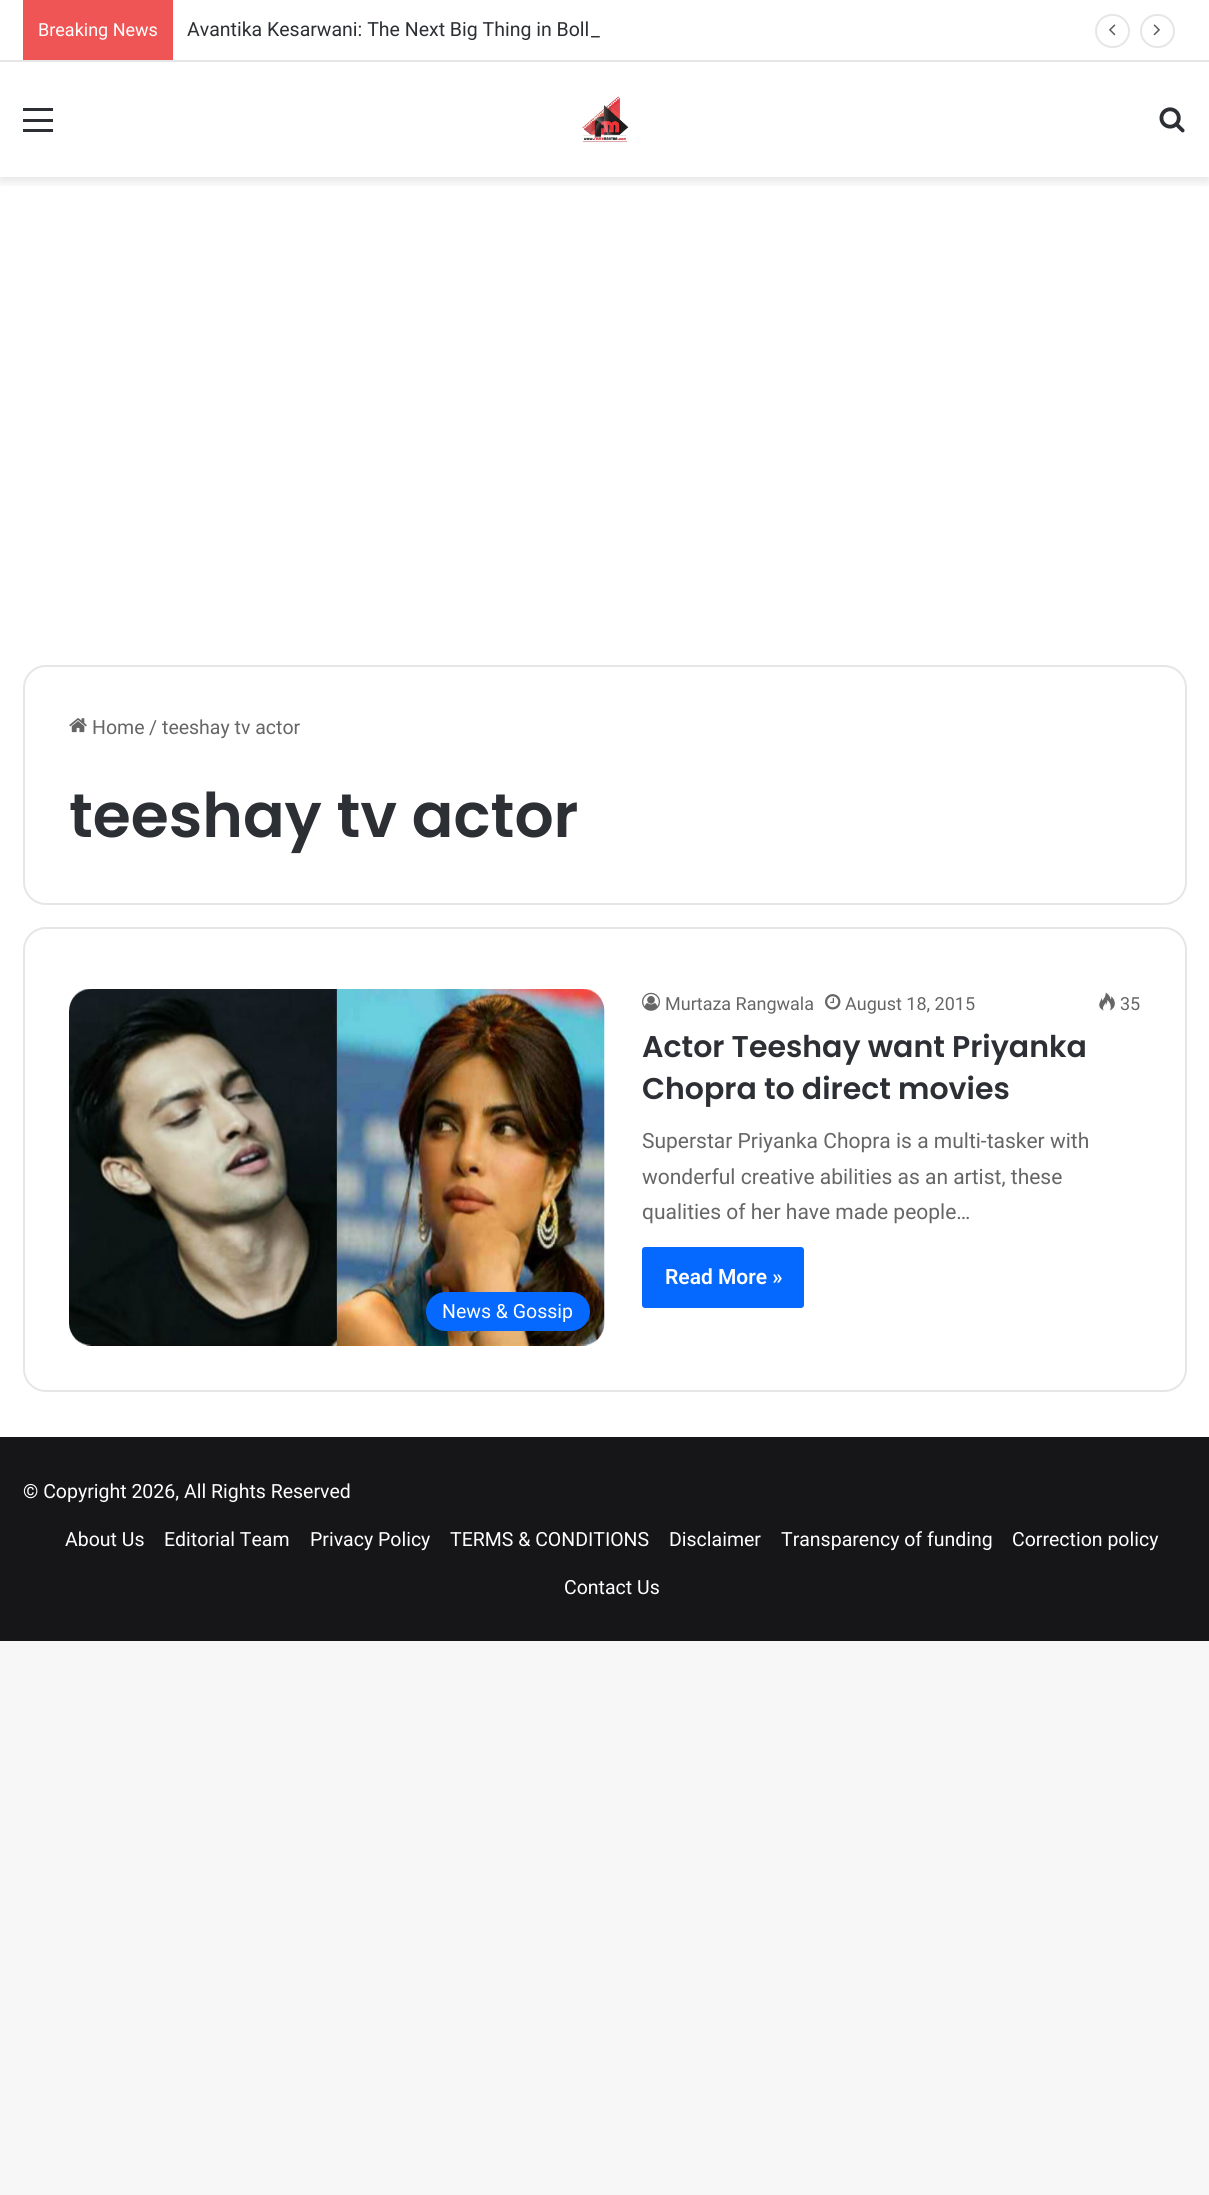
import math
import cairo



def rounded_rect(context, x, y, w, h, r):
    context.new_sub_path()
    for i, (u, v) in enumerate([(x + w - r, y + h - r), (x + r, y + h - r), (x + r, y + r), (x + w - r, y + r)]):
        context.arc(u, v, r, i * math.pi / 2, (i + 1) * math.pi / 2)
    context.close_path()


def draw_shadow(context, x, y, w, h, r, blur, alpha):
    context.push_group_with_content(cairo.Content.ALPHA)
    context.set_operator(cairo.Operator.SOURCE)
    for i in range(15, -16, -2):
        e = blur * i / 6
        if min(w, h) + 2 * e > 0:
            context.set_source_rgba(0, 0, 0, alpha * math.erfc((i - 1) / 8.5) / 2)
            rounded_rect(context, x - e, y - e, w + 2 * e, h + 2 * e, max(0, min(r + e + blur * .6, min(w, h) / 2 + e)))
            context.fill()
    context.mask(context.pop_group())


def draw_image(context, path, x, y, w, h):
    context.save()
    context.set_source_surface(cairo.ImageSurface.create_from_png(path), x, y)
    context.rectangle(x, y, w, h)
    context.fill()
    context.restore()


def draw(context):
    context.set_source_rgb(247 / 255, 247 / 255, 247 / 255)
    context.paint()
    context.set_source_rgb(1, 1, 1)
    context.rectangle(0, 62, 1209, 1375)
    context.fill()
    context.save()
    context.rectangle(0, 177, 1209, 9)
    context.clip()
    context.set_source_rgb(0, 0, 0)
    draw_shadow(context, 0, 66, 1209, 116, 0, 5, 0.1)
    context.restore()
    context.rectangle(0, 0, 1209, 60)
    context.fill()
    context.set_source_rgb(230 / 255, 230 / 255, 230 / 255)
    context.rectangle(0, 60, 1209, 2)
    context.fill()
    context.set_source_rgb(240 / 255, 85 / 255, 85 / 255)
    context.rectangle(23, 0, 150, 60)
    context.fill()
    rounded_rect(context, 1096, 15, 33, 32, 16)
    context.set_source_rgb(230 / 255, 230 / 255, 230 / 255)
    context.stroke()
    draw_image(context, "images/1.png", 1109, 24, 7, 12)
    rounded_rect(context, 1141, 15, 33, 32, 16)
    context.stroke()
    draw_image(context, "images/2.png", 1153, 24, 7, 12)
    context.set_source_rgb(44 / 255, 47 / 255, 52 / 255)
    context.rectangle(23, 119, 30, 3)
    context.fill()
    context.rectangle(23, 108, 30, 3)
    context.fill()
    context.rectangle(23, 129, 30, 3)
    context.fill()
    draw_image(context, "images/3.png", 582, 96, 47, 47)
    draw_image(context, "images/4.png", 1159, 107, 26, 26)
    rounded_rect(context, 24, 666, 1162, 238, 22)
    context.set_source_rgb(230 / 255, 230 / 255, 230 / 255)
    context.stroke()
    draw_image(context, "images/5.png", 69, 718, 18, 15)
    rounded_rect(context, 24, 928, 1162, 463, 22)
    context.stroke()
    draw_image(context, "images/6.png", 642, 992, 18, 19)
    draw_image(context, "images/7.png", 825, 994, 16, 16)
    draw_image(context, "images/8.png", 1099, 992, 16, 19)
    context.set_source_rgb(6 / 255, 105 / 255, 1)
    rounded_rect(context, 642, 1247, 162, 61, 3)
    context.fill()
    draw_image(context, "images/9.png", 69, 989, 536, 357)
    rounded_rect(context, 426, 1292, 164, 39, 19.5)
    context.fill()
    context.set_source_rgb(22 / 255, 22 / 255, 25 / 255)
    context.rectangle(0, 1437, 1209, 204)
    context.fill()
    context.select_font_face("Roboto")
    context.set_font_size(18)
    context.set_source_rgb(1, 1, 1)
    context.move_to(38, 36)
    context.show_text("Breaking News")
    context.set_font_size(19.5)
    context.set_source_rgb(44 / 255, 47 / 255, 52 / 255)
    context.move_to(187, 36)
    context.show_text("Avantika Kesarwani: The Next Big Thing in Boll")
    context.move_to(591, 36)
    context.show_text("_")
    context.set_source_rgb(102 / 255, 102 / 255, 102 / 255)
    context.move_to(92, 734)
    context.show_text("Home")
    context.move_to(149, 734)
    context.show_text("/")
    context.move_to(162, 734)
    context.show_text("teeshay tv actor")
    context.select_font_face("Poppins SemiBold")
    context.set_font_size(61.5)
    context.set_source_rgb(44 / 255, 47 / 255, 52 / 255)
    context.move_to(69, 837)
    context.show_text("teeshay tv actor")
    context.select_font_face("Roboto")
    context.set_font_size(18)
    context.set_source_rgb(102 / 255, 102 / 255, 102 / 255)
    context.move_to(665, 1010)
    context.show_text("Murtaza Rangwala")
    context.move_to(845, 1010)
    context.show_text("August 18, 2015")
    context.move_to(1120, 1010)
    context.show_text("35")
    context.select_font_face("Poppins SemiBold")
    context.set_font_size(30)
    context.set_source_rgb(44 / 255, 47 / 255, 52 / 255)
    context.move_to(642, 1057)
    context.show_text("Actor Teeshay want Priyanka")
    context.move_to(642, 1099)
    context.show_text("Chopra to direct movies")
    context.select_font_face("Roboto")
    context.set_font_size(21)
    context.set_source_rgb(102 / 255, 102 / 255, 102 / 255)
    context.move_to(642, 1148)
    context.show_text("Superstar Priyanka Chopra is a multi-tasker with")
    context.move_to(642, 1184)
    context.show_text("wonderful creative abilities as an artist, these")
    context.move_to(642, 1219)
    context.show_text("qualities of her have made people…")
    context.select_font_face("Roboto SemiBold")
    context.set_source_rgb(1, 1, 1)
    context.move_to(665, 1284)
    context.show_text("Read More »")
    context.select_font_face("Roboto")
    context.set_font_size(19.5)
    context.move_to(442, 1318)
    context.show_text("News & Gossip")
    context.move_to(23, 1498)
    context.show_text("© Copyright 2026, All Rights Reserved")
    context.move_to(65, 1546)
    context.show_text("About Us")
    context.move_to(164, 1546)
    context.show_text("Editorial Team")
    context.move_to(310, 1546)
    context.show_text("Privacy Policy")
    context.move_to(450, 1546)
    context.show_text("TERMS & CONDITIONS")
    context.move_to(669, 1546)
    context.show_text("Disclaimer")
    context.move_to(781, 1546)
    context.show_text("Transparency of funding")
    context.move_to(1012, 1546)
    context.show_text("Correction policy")
    context.move_to(564, 1594)
    context.show_text("Contact Us")


surface = cairo.ImageSurface(cairo.Format.RGB24, 1209, 2195)
context = cairo.Context(surface)
options = cairo.FontOptions()
options.set_hint_metrics(cairo.HintMetrics.OFF)
options.set_hint_style(cairo.HintStyle.NONE)
context.set_font_options(options)
context.set_miter_limit(4)
draw(context)
surface.write_to_png("out.png")
